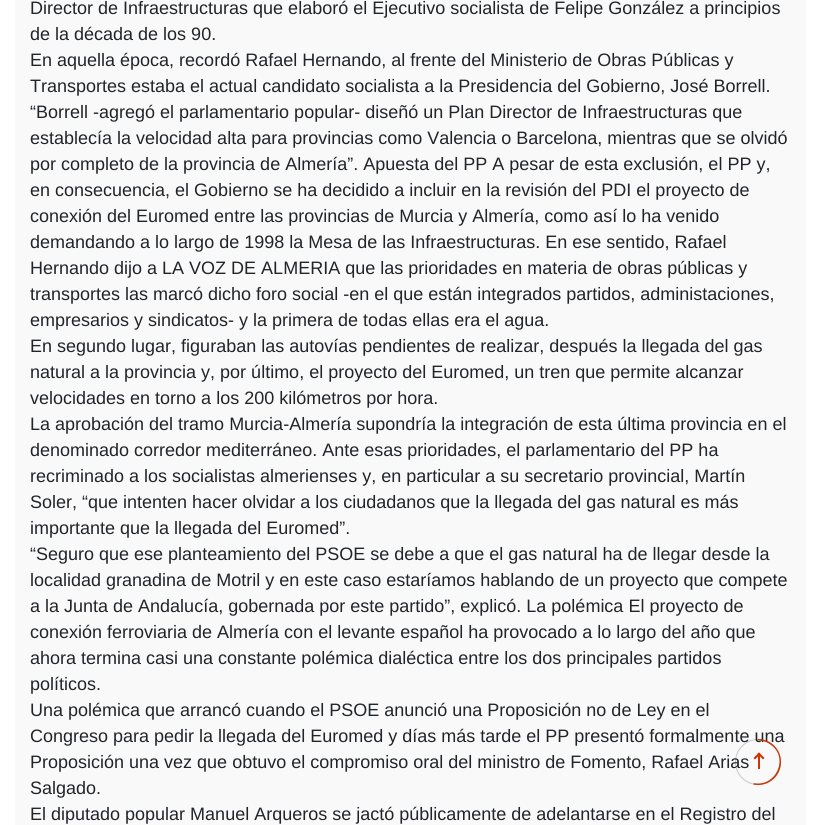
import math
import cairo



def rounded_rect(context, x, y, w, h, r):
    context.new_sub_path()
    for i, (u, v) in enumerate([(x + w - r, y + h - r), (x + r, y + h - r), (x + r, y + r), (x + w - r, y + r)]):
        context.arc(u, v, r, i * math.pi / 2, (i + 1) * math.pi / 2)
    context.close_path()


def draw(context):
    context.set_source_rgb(1, 1, 1)
    context.paint()
    context.set_source_rgb(249 / 255, 249 / 255, 249 / 255)
    context.rectangle(15, 0, 791, 825)
    context.fill()
    context.select_font_face("Liberation Sans")
    context.set_font_size(18)
    context.set_source_rgb(33 / 255, 37 / 255, 41 / 255)
    context.move_to(30, 14)
    context.show_text("Director de Infraestructuras que elaboró el Ejecutivo socialista de Felipe González a principios")
    context.move_to(30, 40)
    context.show_text("de la década de los 90.")
    context.move_to(30, 66)
    context.show_text("En aquella época, recordó Rafael Hernando, al frente del Ministerio de Obras Públicas y")
    context.move_to(30, 92)
    context.show_text("Transportes estaba el actual candidato socialista a la Presidencia del Gobierno, José Borrell.")
    context.move_to(30, 118)
    context.show_text("“Borrell -agregó el parlamentario popular- diseñó un Plan Director de Infraestructuras que")
    context.move_to(30, 144)
    context.show_text("establecía la velocidad alta para provincias como Valencia o Barcelona, mientras que se olvidó")
    context.move_to(30, 170)
    context.show_text("por completo de la provincia de Almería”. Apuesta del PP A pesar de esta exclusión, el PP y,")
    context.move_to(30, 196)
    context.show_text("en consecuencia, el Gobierno se ha decidido a incluir en la revisión del PDI el proyecto de")
    context.move_to(30, 222)
    context.show_text("conexión del Euromed entre las provincias de Murcia y Almería, como así lo ha venido")
    context.move_to(30, 248)
    context.show_text("demandando a lo largo de 1998 la Mesa de las Infraestructuras. En ese sentido, Rafael")
    context.move_to(30, 274)
    context.show_text("Hernando dijo a LA VOZ DE ALMERIA que las prioridades en materia de obras públicas y")
    context.move_to(30, 300)
    context.show_text("transportes las marcó dicho foro social -en el que están integrados partidos, administaciones,")
    context.move_to(30, 326)
    context.show_text("empresarios y sindicatos- y la primera de todas ellas era el agua.")
    context.move_to(30, 352)
    context.show_text("En segundo lugar, figuraban las autovías pendientes de realizar, después la llegada del gas")
    context.move_to(30, 378)
    context.show_text("natural a la provincia y, por último, el proyecto del Euromed, un tren que permite alcanzar")
    context.move_to(30, 404)
    context.show_text("velocidades en torno a los 200 kilómetros por hora.")
    context.move_to(30, 430)
    context.show_text("La aprobación del tramo Murcia-Almería supondría la integración de esta última provincia en el")
    context.move_to(30, 456)
    context.show_text("denominado corredor mediterráneo. Ante esas prioridades, el parlamentario del PP ha")
    context.move_to(30, 482)
    context.show_text("recriminado a los socialistas almerienses y, en particular a su secretario provincial, Martín")
    context.move_to(30, 508)
    context.show_text("Soler, “que intenten hacer olvidar a los ciudadanos que la llegada del gas natural es más")
    context.move_to(30, 534)
    context.show_text("importante que la llegada del Euromed”.")
    context.move_to(30, 560)
    context.show_text("“Seguro que ese planteamiento del PSOE se debe a que el gas natural ha de llegar desde la")
    context.move_to(30, 586)
    context.show_text("localidad granadina de Motril y en este caso estaríamos hablando de un proyecto que compete")
    context.move_to(30, 612)
    context.show_text("a la Junta de Andalucía, gobernada por este partido”, explicó. La polémica El proyecto de")
    context.move_to(30, 638)
    context.show_text("conexión ferroviaria de Almería con el levante español ha provocado a lo largo del año que")
    context.move_to(30, 664)
    context.show_text("ahora termina casi una constante polémica dialéctica entre los dos principales partidos")
    context.move_to(30, 690)
    context.show_text("políticos.")
    context.move_to(30, 716)
    context.show_text("Una polémica que arrancó cuando el PSOE anunció una Proposición no de Ley en el")
    context.move_to(30, 742)
    context.show_text("Congreso para pedir la llegada del Euromed y días más tarde el PP presentó formalmente una")
    context.move_to(30, 768)
    context.show_text("Proposición una vez que obtuvo el compromiso oral del ministro de Fomento, Rafael Arias")
    context.move_to(30, 794)
    context.show_text("Salgado.")
    context.move_to(30, 820)
    context.show_text("El diputado popular Manuel Arqueros se jactó públicamente de adelantarse en el Registro del")
    context.new_path()
    context.arc(758, 762, 22.5, 0, 2 * math.pi)
    context.set_source_rgba(0, 0, 0, 0.2)
    context.set_line_width(1)
    context.stroke()
    context.save()
    rounded_rect(context, 735, 739, 46, 46, 23)
    context.clip()
    context.new_path()
    context.move_to(758, 739.5)
    context.curve_to(762.5, 739.5, 767, 741, 770.5, 743.5)
    context.curve_to(791, 757, 777, 788.5, 753.5, 784)
    context.set_source_rgb(204 / 255, 54 / 255, 5 / 255)
    context.set_line_width(1.8)
    context.stroke()
    context.restore()
    context.set_source_rgb(204 / 255, 54 / 255, 5 / 255)
    context.new_path()
    context.move_to(760.5, 754)
    context.line_to(755, 759.5)
    context.line_to(753.5, 758)
    context.line_to(759, 752.5)
    context.close_path()
    context.fill()
    context.new_path()
    context.move_to(764.5, 758)
    context.line_to(763, 759.5)
    context.line_to(757.5, 754)
    context.line_to(759, 752.5)
    context.close_path()
    context.fill()
    context.rectangle(758, 755, 2, 14)
    context.fill()


surface = cairo.ImageSurface(cairo.Format.RGB24, 821, 825)
context = cairo.Context(surface)
options = cairo.FontOptions()
options.set_hint_metrics(cairo.HintMetrics.OFF)
options.set_hint_style(cairo.HintStyle.NONE)
context.set_font_options(options)
context.set_miter_limit(4)
draw(context)
surface.write_to_png("out.png")
